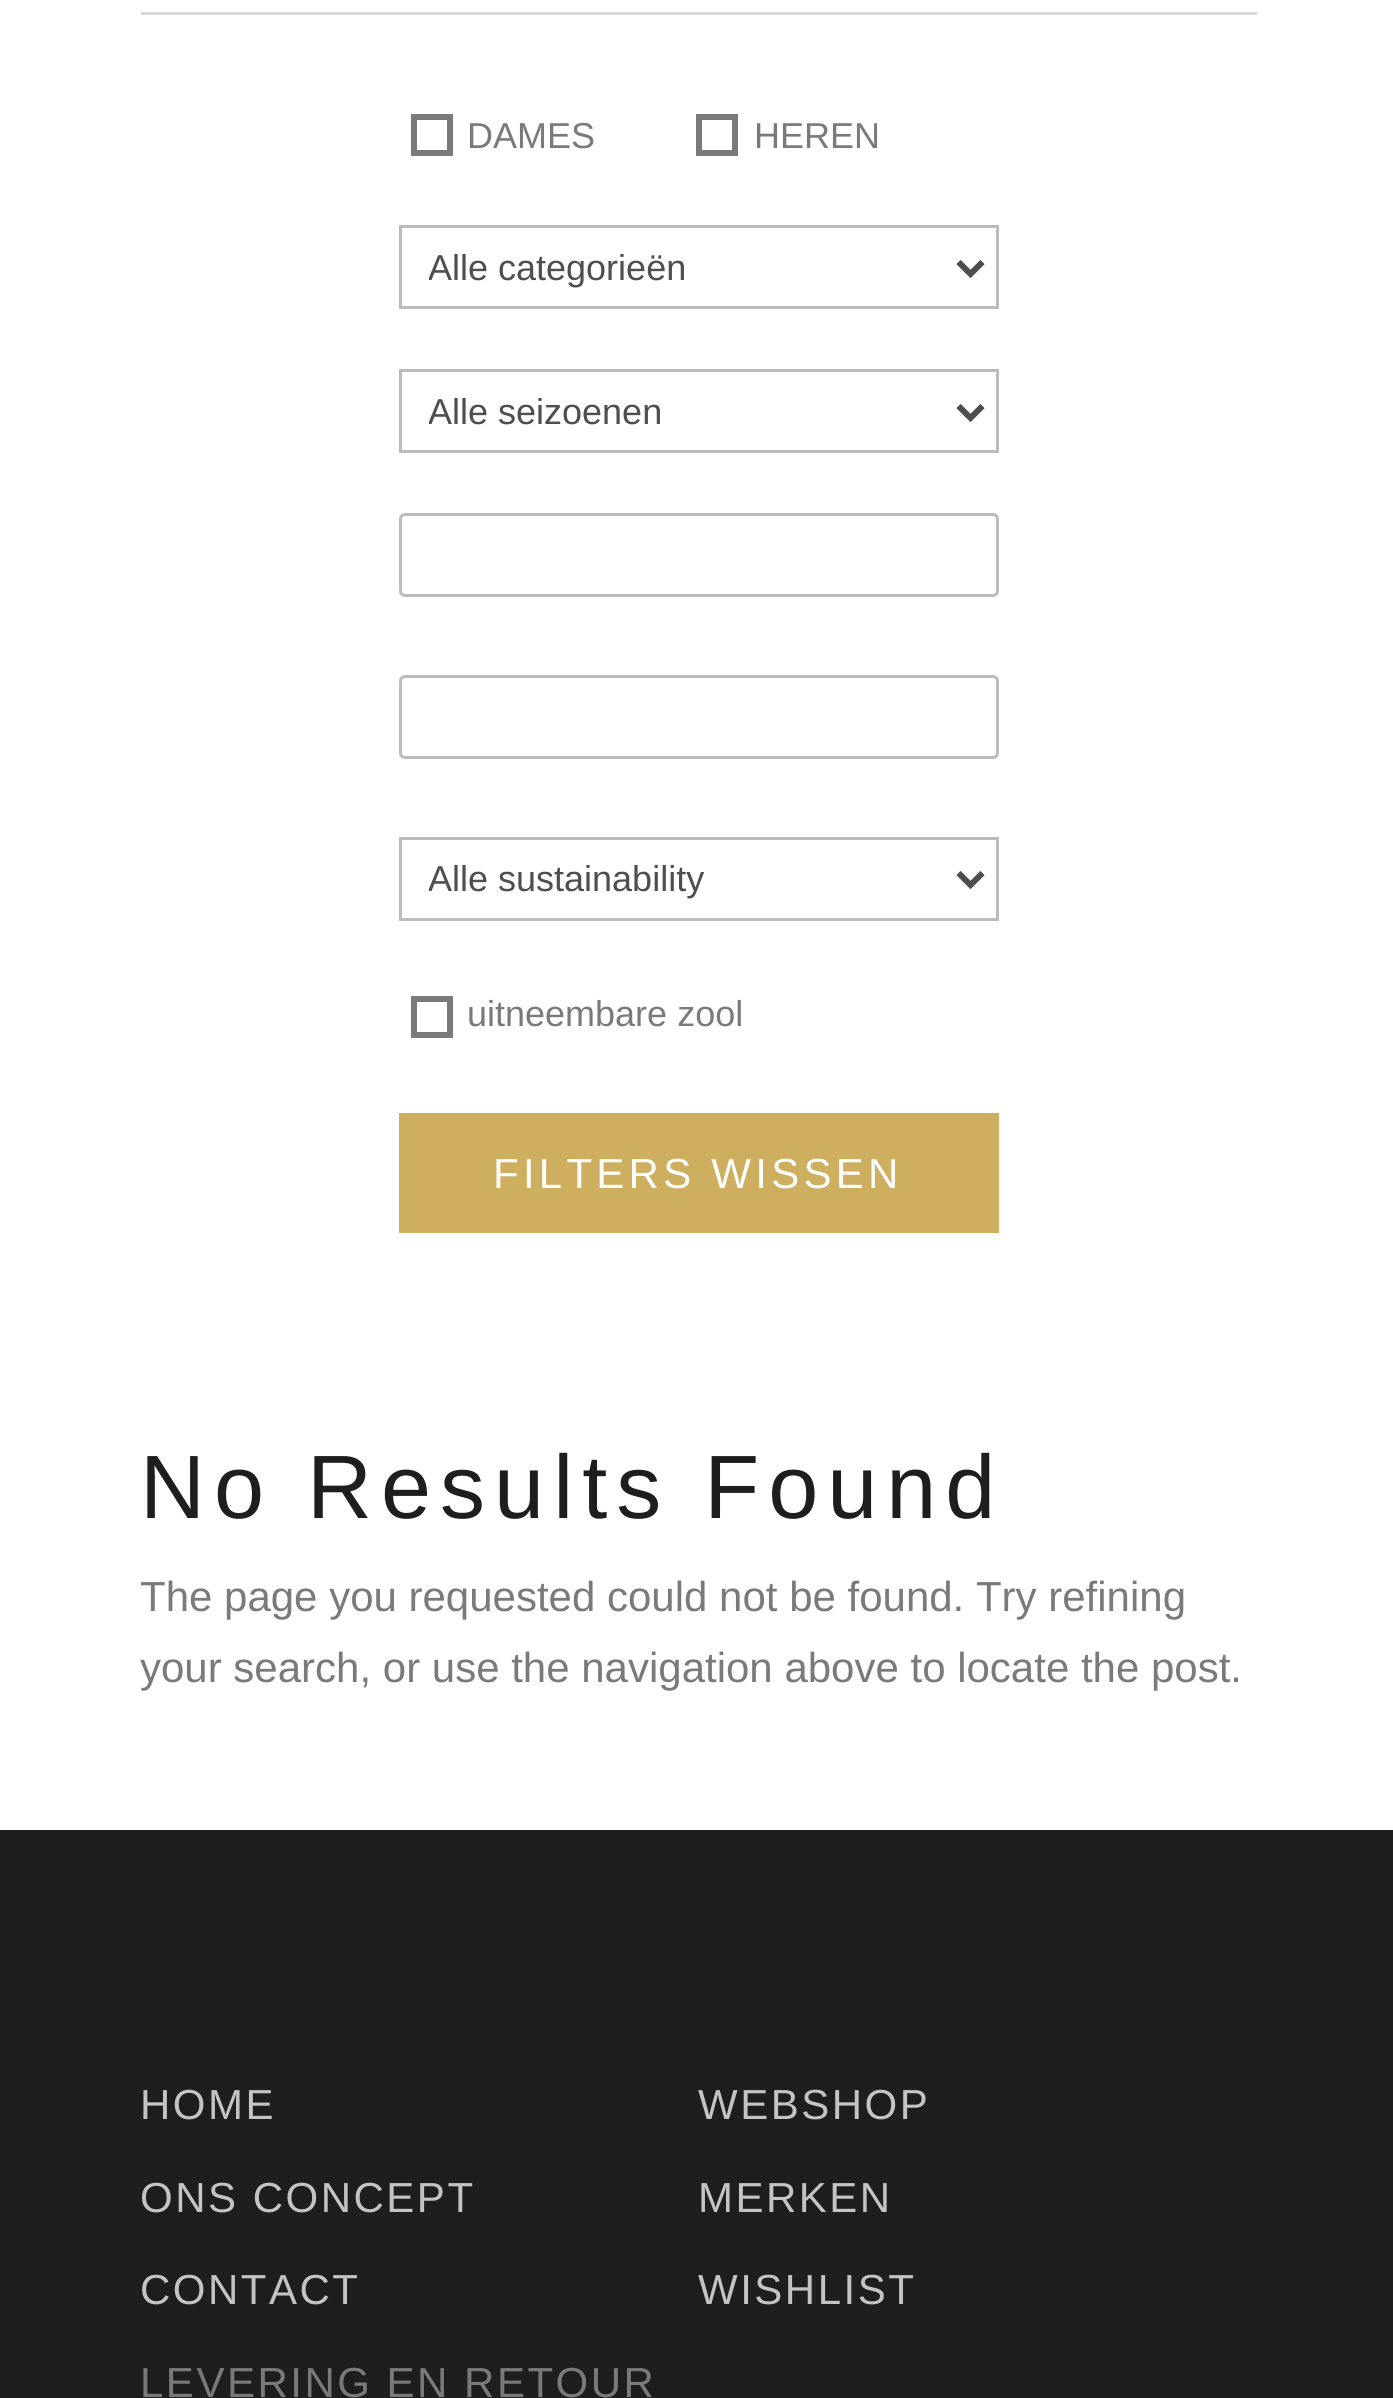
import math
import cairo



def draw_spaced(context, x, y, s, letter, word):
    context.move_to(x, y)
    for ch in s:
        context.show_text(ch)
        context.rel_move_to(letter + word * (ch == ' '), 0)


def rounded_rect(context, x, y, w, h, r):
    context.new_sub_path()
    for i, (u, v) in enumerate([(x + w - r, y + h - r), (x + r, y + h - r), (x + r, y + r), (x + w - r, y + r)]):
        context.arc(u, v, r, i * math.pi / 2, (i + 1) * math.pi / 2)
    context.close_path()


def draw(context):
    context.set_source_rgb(1, 1, 1)
    context.paint()
    context.set_source_rgb(218 / 255, 218 / 255, 218 / 255)
    context.rectangle(141, 12, 1116, 3)
    context.fill()
    context.rectangle(414, 117, 36, 36)
    context.set_source_rgb(122 / 255, 122 / 255, 122 / 255)
    context.set_line_width(6)
    context.stroke()
    context.rectangle(699, 117, 36, 36)
    context.stroke()
    context.rectangle(400.5, 226.5, 597, 81)
    context.set_source_rgb(187 / 255, 187 / 255, 187 / 255)
    context.set_line_width(3)
    context.stroke()
    context.new_path()
    context.move_to(958.5, 262)
    context.line_to(970.5, 274)
    context.line_to(982.5, 262)
    context.set_source_rgb(78 / 255, 78 / 255, 78 / 255)
    context.set_line_width(6)
    context.stroke()
    context.rectangle(400.5, 370.5, 597, 81)
    context.set_source_rgb(187 / 255, 187 / 255, 187 / 255)
    context.set_line_width(3)
    context.stroke()
    context.new_path()
    context.move_to(958.5, 406)
    context.line_to(970.5, 418)
    context.line_to(982.5, 406)
    context.set_source_rgb(78 / 255, 78 / 255, 78 / 255)
    context.set_line_width(6)
    context.stroke()
    rounded_rect(context, 400.5, 514.5, 597, 81, 4.5)
    context.set_source_rgb(187 / 255, 187 / 255, 187 / 255)
    context.set_line_width(3)
    context.stroke()
    rounded_rect(context, 400.5, 676.5, 597, 81, 4.5)
    context.stroke()
    context.rectangle(400.5, 838.5, 597, 81)
    context.stroke()
    context.new_path()
    context.move_to(958.5, 873)
    context.line_to(970.5, 885)
    context.line_to(982.5, 873)
    context.set_source_rgb(78 / 255, 78 / 255, 78 / 255)
    context.set_line_width(6)
    context.stroke()
    context.rectangle(414, 999, 36, 36)
    context.set_source_rgb(122 / 255, 122 / 255, 122 / 255)
    context.stroke()
    context.set_source_rgb(206 / 255, 174 / 255, 95 / 255)
    context.rectangle(399, 1113, 600, 120)
    context.fill()
    context.set_source_rgb(30 / 255, 30 / 255, 30 / 255)
    context.rectangle(0, 1830, 1393, 568)
    context.fill()
    context.select_font_face("Liberation Sans")
    context.set_font_size(36)
    context.set_source_rgb(122 / 255, 122 / 255, 122 / 255)
    context.move_to(467, 148)
    context.show_text("DAMES")
    context.move_to(754, 148)
    context.show_text("HEREN")
    context.save()
    context.rectangle(429, 243, 504, 48)
    context.clip()
    context.set_source_rgb(78 / 255, 78 / 255, 78 / 255)
    context.move_to(428, 280)
    context.show_text("Alle categorieën")
    context.restore()
    context.save()
    context.rectangle(429, 387, 504, 48)
    context.clip()
    context.set_source_rgb(78 / 255, 78 / 255, 78 / 255)
    context.move_to(428, 424)
    context.show_text("Alle seizoenen")
    context.restore()
    context.save()
    context.rectangle(429, 855, 504, 48)
    context.clip()
    context.set_source_rgb(78 / 255, 78 / 255, 78 / 255)
    context.move_to(428, 891)
    context.show_text("Alle sustainability")
    context.restore()
    context.move_to(467, 1026)
    context.show_text("uitneembare zool")
    context.set_font_size(42)
    context.set_source_rgb(1, 1, 1)
    draw_spaced(context, 493, 1188, "FILTERS WISSEN", 4.25, 0)
    context.set_font_size(90)
    context.set_source_rgb(30 / 255, 30 / 255, 30 / 255)
    draw_spaced(context, 140, 1518, "No Results Found", 9, 0)
    context.set_font_size(42)
    context.set_source_rgb(122 / 255, 122 / 255, 122 / 255)
    context.move_to(140, 1611)
    context.show_text("The page you requested could not be found. Try refining")
    context.move_to(140, 1682)
    context.show_text("your search, or use the navigation above to locate the post.")
    context.set_source_rgb(196 / 255, 196 / 255, 196 / 255)
    draw_spaced(context, 140, 2119, "HOME", 2.5, 0)
    draw_spaced(context, 698, 2119, "WEBSHOP", 2.5, 0)
    draw_spaced(context, 140, 2212, "ONS CONCEPT", 2.5, 0)
    draw_spaced(context, 698, 2212, "MERKEN", 2.5, 0)
    draw_spaced(context, 140, 2304, "CONTACT", 2.5, 0)
    draw_spaced(context, 698, 2304, "WISHLIST", 2.5, 0)
    context.set_source_rgb(122 / 255, 122 / 255, 122 / 255)
    draw_spaced(context, 140, 2397, "LEVERING EN RETOUR", 2.5, 0)


surface = cairo.ImageSurface(cairo.Format.RGB24, 1393, 2398)
context = cairo.Context(surface)
options = cairo.FontOptions()
options.set_hint_metrics(cairo.HintMetrics.OFF)
options.set_hint_style(cairo.HintStyle.NONE)
context.set_font_options(options)
context.set_miter_limit(4)
draw(context)
surface.write_to_png("out.png")
